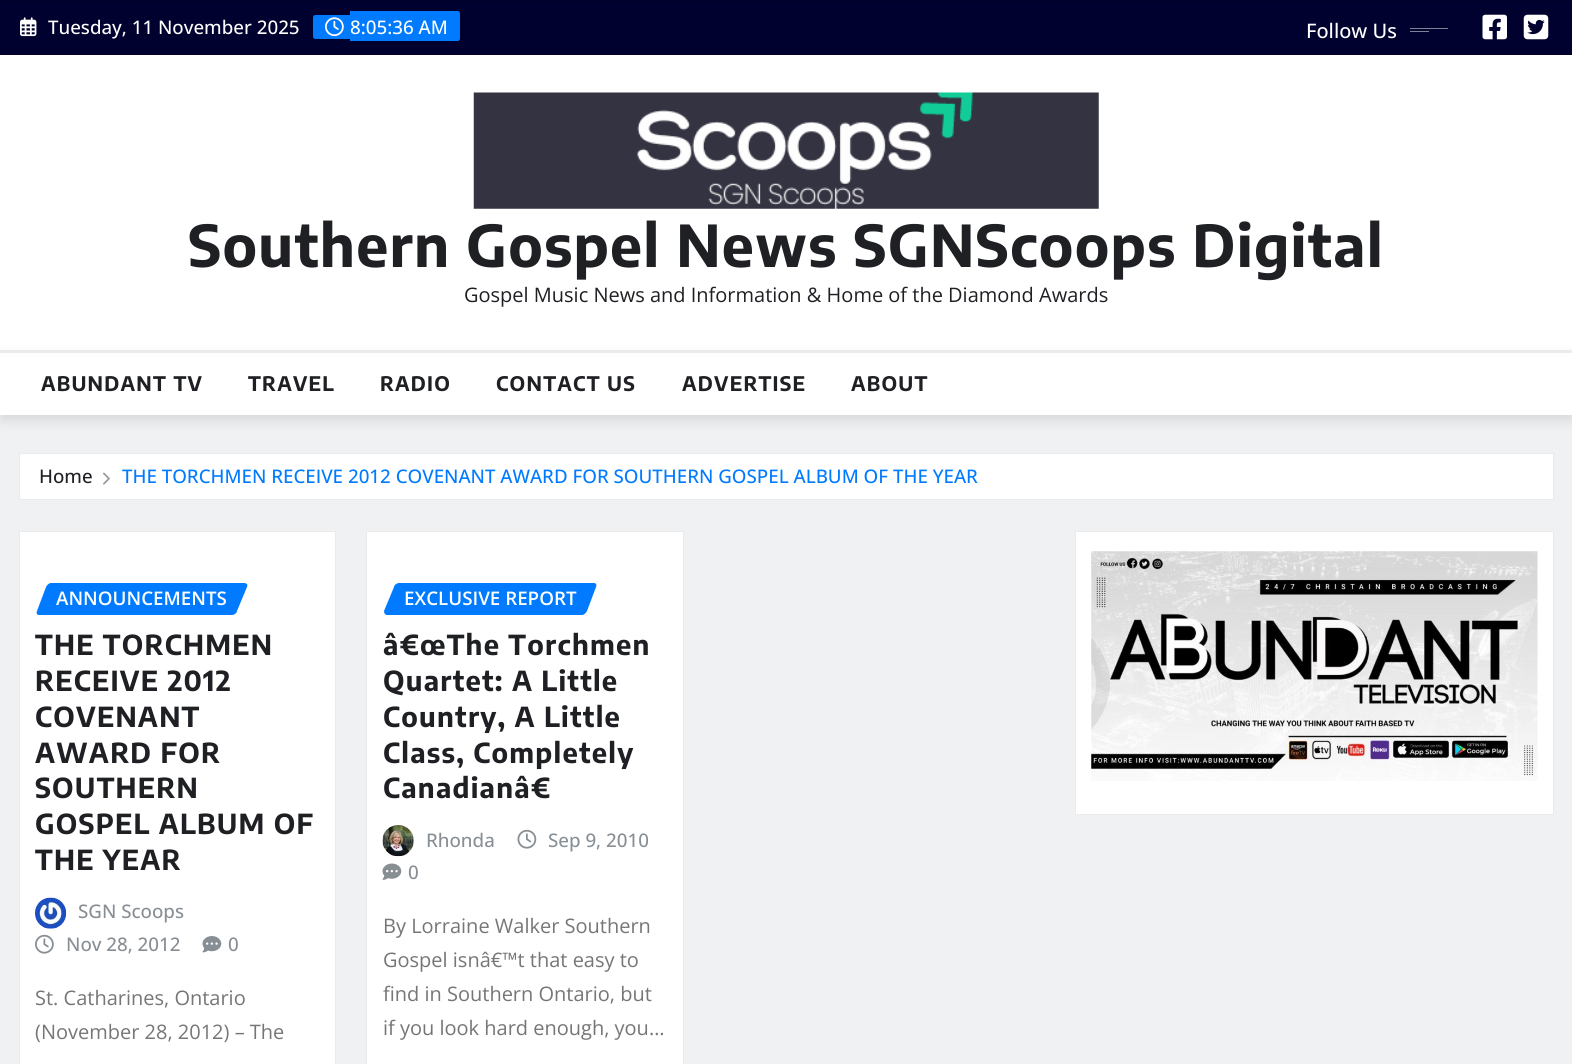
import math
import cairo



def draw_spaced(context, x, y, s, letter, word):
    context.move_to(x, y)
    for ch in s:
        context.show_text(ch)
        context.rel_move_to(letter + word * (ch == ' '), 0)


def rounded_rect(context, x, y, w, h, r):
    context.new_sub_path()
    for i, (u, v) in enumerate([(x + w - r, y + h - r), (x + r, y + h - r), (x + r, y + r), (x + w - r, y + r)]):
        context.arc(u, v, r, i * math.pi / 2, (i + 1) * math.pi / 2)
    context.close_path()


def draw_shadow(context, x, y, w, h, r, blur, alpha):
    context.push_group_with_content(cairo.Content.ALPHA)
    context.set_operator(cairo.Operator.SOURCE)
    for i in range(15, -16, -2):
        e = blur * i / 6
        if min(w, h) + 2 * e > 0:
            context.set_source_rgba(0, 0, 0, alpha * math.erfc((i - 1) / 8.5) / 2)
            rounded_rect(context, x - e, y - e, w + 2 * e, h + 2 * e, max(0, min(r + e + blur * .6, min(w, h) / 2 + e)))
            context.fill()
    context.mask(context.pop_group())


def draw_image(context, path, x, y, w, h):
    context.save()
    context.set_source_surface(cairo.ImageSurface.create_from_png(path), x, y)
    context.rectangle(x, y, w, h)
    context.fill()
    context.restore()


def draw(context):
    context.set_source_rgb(240 / 255, 241 / 255, 243 / 255)
    context.paint()
    context.set_source_rgb(1 / 255, 1 / 255, 47 / 255)
    context.rectangle(0, 1, 1572, 53)
    context.fill()
    context.set_source_rgb(1 / 255, 1 / 255, 42 / 255)
    context.rectangle(0, 0, 1572, 1)
    context.fill()
    context.rectangle(0, 54, 1572, 1)
    context.fill()
    draw_image(context, "images/1.png", 20, 17, 17, 20)
    context.set_source_rgb(0, 123 / 255, 1)
    context.new_path()
    context.move_to(315.5, 15)
    context.line_to(350, 15)
    context.line_to(350, 39)
    context.line_to(315.5, 39)
    context.curve_to(314, 39, 313, 38, 313, 36.5)
    context.line_to(313, 17.5)
    context.curve_to(313, 16, 314, 15, 315.5, 15)
    context.close_path()
    context.fill()
    draw_image(context, "images/2.png", 325, 17, 19, 20)
    context.new_path()
    context.move_to(350, 11)
    context.line_to(457.5, 11)
    context.curve_to(459, 11, 460, 12, 460, 13.5)
    context.line_to(460, 38.5)
    context.curve_to(460, 40, 459, 41, 457.5, 41)
    context.line_to(350, 41)
    context.close_path()
    context.fill()
    context.set_source_rgb(128 / 255, 128 / 255, 151 / 255)
    context.rectangle(1410, 28, 38, 1)
    context.fill()
    context.rectangle(1410, 31, 19, 1)
    context.fill()
    draw_image(context, "images/3.png", 1482, 14, 25, 26)
    draw_image(context, "images/4.png", 1523, 14, 26, 26)
    context.set_source_rgb(1, 1, 1)
    context.rectangle(0, 55, 1572, 295)
    context.fill()
    draw_image(context, "images/5.png", 473, 92, 626, 117)
    context.set_source_rgb(0, 0, 0)
    draw_shadow(context, 0, 356, 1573, 65, 0, 6, 0.1)
    context.set_source_rgb(1, 1, 1)
    context.rectangle(0, 353, 1572, 62)
    context.fill()
    context.set_source_rgb(235 / 255, 235 / 255, 235 / 255)
    context.rectangle(0, 350, 1572, 3)
    context.fill()
    context.set_source_rgb(1, 1, 1)
    context.rectangle(19.5, 453.5, 1534, 46)
    context.fill_preserve()
    context.set_source_rgb(235 / 255, 235 / 255, 235 / 255)
    context.set_line_width(1)
    context.stroke()
    draw_image(context, "images/6.png", 103, 472, 7, 13)
    context.set_source_rgb(1, 1, 1)
    context.rectangle(19.5, 531.5, 316, 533)
    context.fill_preserve()
    context.set_source_rgb(235 / 255, 235 / 255, 235 / 255)
    context.stroke()
    context.set_source_rgb(0, 123 / 255, 1)
    context.new_path()
    context.move_to(51, 583)
    context.line_to(244, 583)
    context.curve_to(247, 583, 248, 585, 247, 587)
    context.line_to(237, 611)
    context.curve_to(237, 613, 234, 615, 232, 615)
    context.line_to(39, 615)
    context.curve_to(37, 615, 36, 613, 37, 611)
    context.line_to(46, 587)
    context.curve_to(47, 585, 49, 583, 51, 583)
    context.close_path()
    context.fill()
    draw_image(context, "images/7.png", 35, 897, 32, 32)
    draw_image(context, "images/8.png", 35, 934, 19, 20)
    draw_image(context, "images/9.png", 202, 936, 20, 17)
    context.set_source_rgb(1, 1, 1)
    context.rectangle(366.5, 531.5, 317, 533)
    context.fill_preserve()
    context.set_source_rgb(235 / 255, 235 / 255, 235 / 255)
    context.stroke()
    context.set_source_rgb(0, 123 / 255, 1)
    context.new_path()
    context.move_to(399, 583)
    context.line_to(594, 583)
    context.curve_to(596, 583, 597, 585, 596, 587)
    context.line_to(587, 611)
    context.curve_to(586, 613, 584, 615, 582, 615)
    context.line_to(387, 615)
    context.curve_to(385, 615, 384, 613, 384, 611)
    context.line_to(394, 587)
    context.curve_to(394, 585, 397, 583, 399, 583)
    context.close_path()
    context.fill()
    draw_image(context, "images/10.png", 382, 825, 32, 32)
    draw_image(context, "images/11.png", 517, 829, 20, 20)
    draw_image(context, "images/12.png", 382, 863, 20, 17)
    context.set_source_rgb(1, 1, 1)
    context.rectangle(1075.5, 531.5, 478, 283)
    context.fill_preserve()
    context.set_source_rgb(235 / 255, 235 / 255, 235 / 255)
    context.stroke()
    draw_image(context, "images/13.png", 1091, 551, 447, 230)
    context.select_font_face("Open Sans Medium")
    context.set_font_size(18.75)
    context.set_source_rgb(1, 1, 1)
    context.move_to(48, 34)
    context.show_text("Tuesday, 11 November 2025")
    context.move_to(350, 34)
    context.show_text("8:05:36 AM")
    context.set_font_size(20)
    context.move_to(1306, 38)
    context.show_text("Follow Us")
    context.select_font_face("Encode Sans Condensed", cairo.FontSlant.NORMAL, cairo.FontWeight.BOLD)
    context.set_font_size(57.5)
    context.set_source_rgb(31 / 255, 32 / 255, 36 / 255)
    draw_spaced(context, 188, 267, "Southern Gospel News SGNScoops Digital", 1.25, 0)
    context.select_font_face("Open Sans")
    context.set_font_size(20)
    context.move_to(464, 302)
    context.show_text("Gospel Music News and Information & Home of the Diamond Awards")
    context.select_font_face("Encode Sans Condensed", cairo.FontSlant.NORMAL, cairo.FontWeight.BOLD)
    draw_spaced(context, 41, 391, "ABUNDANT TV", 1.25, 0)
    draw_spaced(context, 248, 391, "TRAVEL", 1.25, 0)
    draw_spaced(context, 380, 391, "RADIO", 1.25, 0)
    draw_spaced(context, 496, 391, "CONTACT US", 1.25, 0)
    draw_spaced(context, 682, 391, "ADVERTISE", 1.25, 0)
    draw_spaced(context, 851, 391, "ABOUT", 1.25, 0)
    context.select_font_face("Open Sans Medium")
    context.set_font_size(18.75)
    context.move_to(39, 483)
    context.show_text("Home")
    context.set_source_rgb(0, 123 / 255, 1)
    context.move_to(122, 483)
    context.show_text("THE TORCHMEN RECEIVE 2012 COVENANT AWARD FOR SOUTHERN GOSPEL ALBUM OF THE YEAR")
    context.select_font_face("Open Sans SemiBold")
    context.set_source_rgb(1, 1, 1)
    context.move_to(56, 605)
    context.show_text("ANNOUNCEMENTS")
    context.select_font_face("Encode Sans Condensed", cairo.FontSlant.NORMAL, cairo.FontWeight.BOLD)
    context.set_font_size(27.5)
    context.set_source_rgb(31 / 255, 32 / 255, 36 / 255)
    draw_spaced(context, 35, 655, "THE TORCHMEN", 1.25, 0)
    draw_spaced(context, 35, 691, "RECEIVE 2012", 1.25, 0)
    draw_spaced(context, 35, 727, "COVENANT", 1.25, 0)
    draw_spaced(context, 35, 763, "AWARD FOR", 1.25, 0)
    draw_spaced(context, 35, 798, "SOUTHERN", 1.25, 0)
    draw_spaced(context, 35, 834, "GOSPEL ALBUM OF", 1.25, 0)
    draw_spaced(context, 35, 870, "THE YEAR", 1.25, 0)
    context.select_font_face("Open Sans Medium")
    context.set_font_size(18.75)
    context.set_source_rgb(135 / 255, 142 / 255, 148 / 255)
    context.move_to(78, 918)
    context.show_text("SGN Scoops")
    context.move_to(66, 951)
    context.show_text("Nov 28, 2012")
    context.move_to(228, 951)
    context.show_text("0")
    context.select_font_face("Open Sans")
    context.set_font_size(20)
    context.set_source_rgb(118 / 255, 118 / 255, 118 / 255)
    context.move_to(35, 1005)
    context.show_text("St. Catharines, Ontario")
    context.move_to(35, 1039)
    context.show_text("(November 28, 2012) – The")
    context.select_font_face("Open Sans SemiBold")
    context.set_font_size(18.75)
    context.set_source_rgb(1, 1, 1)
    context.move_to(404, 605)
    context.show_text("EXCLUSIVE REPORT")
    context.select_font_face("Encode Sans Condensed", cairo.FontSlant.NORMAL, cairo.FontWeight.BOLD)
    context.set_font_size(27.5)
    context.set_source_rgb(31 / 255, 32 / 255, 36 / 255)
    draw_spaced(context, 383, 655, "â€œThe Torchmen", 1.25, 0)
    draw_spaced(context, 383, 691, "Quartet: A Little", 1.25, 0)
    draw_spaced(context, 383, 727, "Country, A Little", 1.25, 0)
    draw_spaced(context, 383, 763, "Class, Completely", 1.25, 0)
    draw_spaced(context, 383, 798, "Canadianâ€", 1.25, 0)
    context.select_font_face("Open Sans Medium")
    context.set_font_size(18.75)
    context.set_source_rgb(135 / 255, 142 / 255, 148 / 255)
    context.move_to(426, 847)
    context.show_text("Rhonda")
    context.move_to(548, 847)
    context.show_text("Sep 9, 2010")
    context.move_to(408, 879)
    context.show_text("0")
    context.select_font_face("Open Sans")
    context.set_font_size(20)
    context.set_source_rgb(118 / 255, 118 / 255, 118 / 255)
    context.move_to(383, 933)
    context.show_text("By Lorraine Walker Southern")
    context.move_to(383, 967)
    context.show_text("Gospel isnâ€™t that easy to")
    context.move_to(383, 1001)
    context.show_text("find in Southern Ontario, but")
    context.move_to(383, 1035)
    context.show_text("if you look hard enough, you…")


surface = cairo.ImageSurface(cairo.Format.RGB24, 1572, 1064)
context = cairo.Context(surface)
options = cairo.FontOptions()
options.set_hint_metrics(cairo.HintMetrics.OFF)
options.set_hint_style(cairo.HintStyle.NONE)
context.set_font_options(options)
context.set_miter_limit(4)
draw(context)
surface.write_to_png("out.png")
